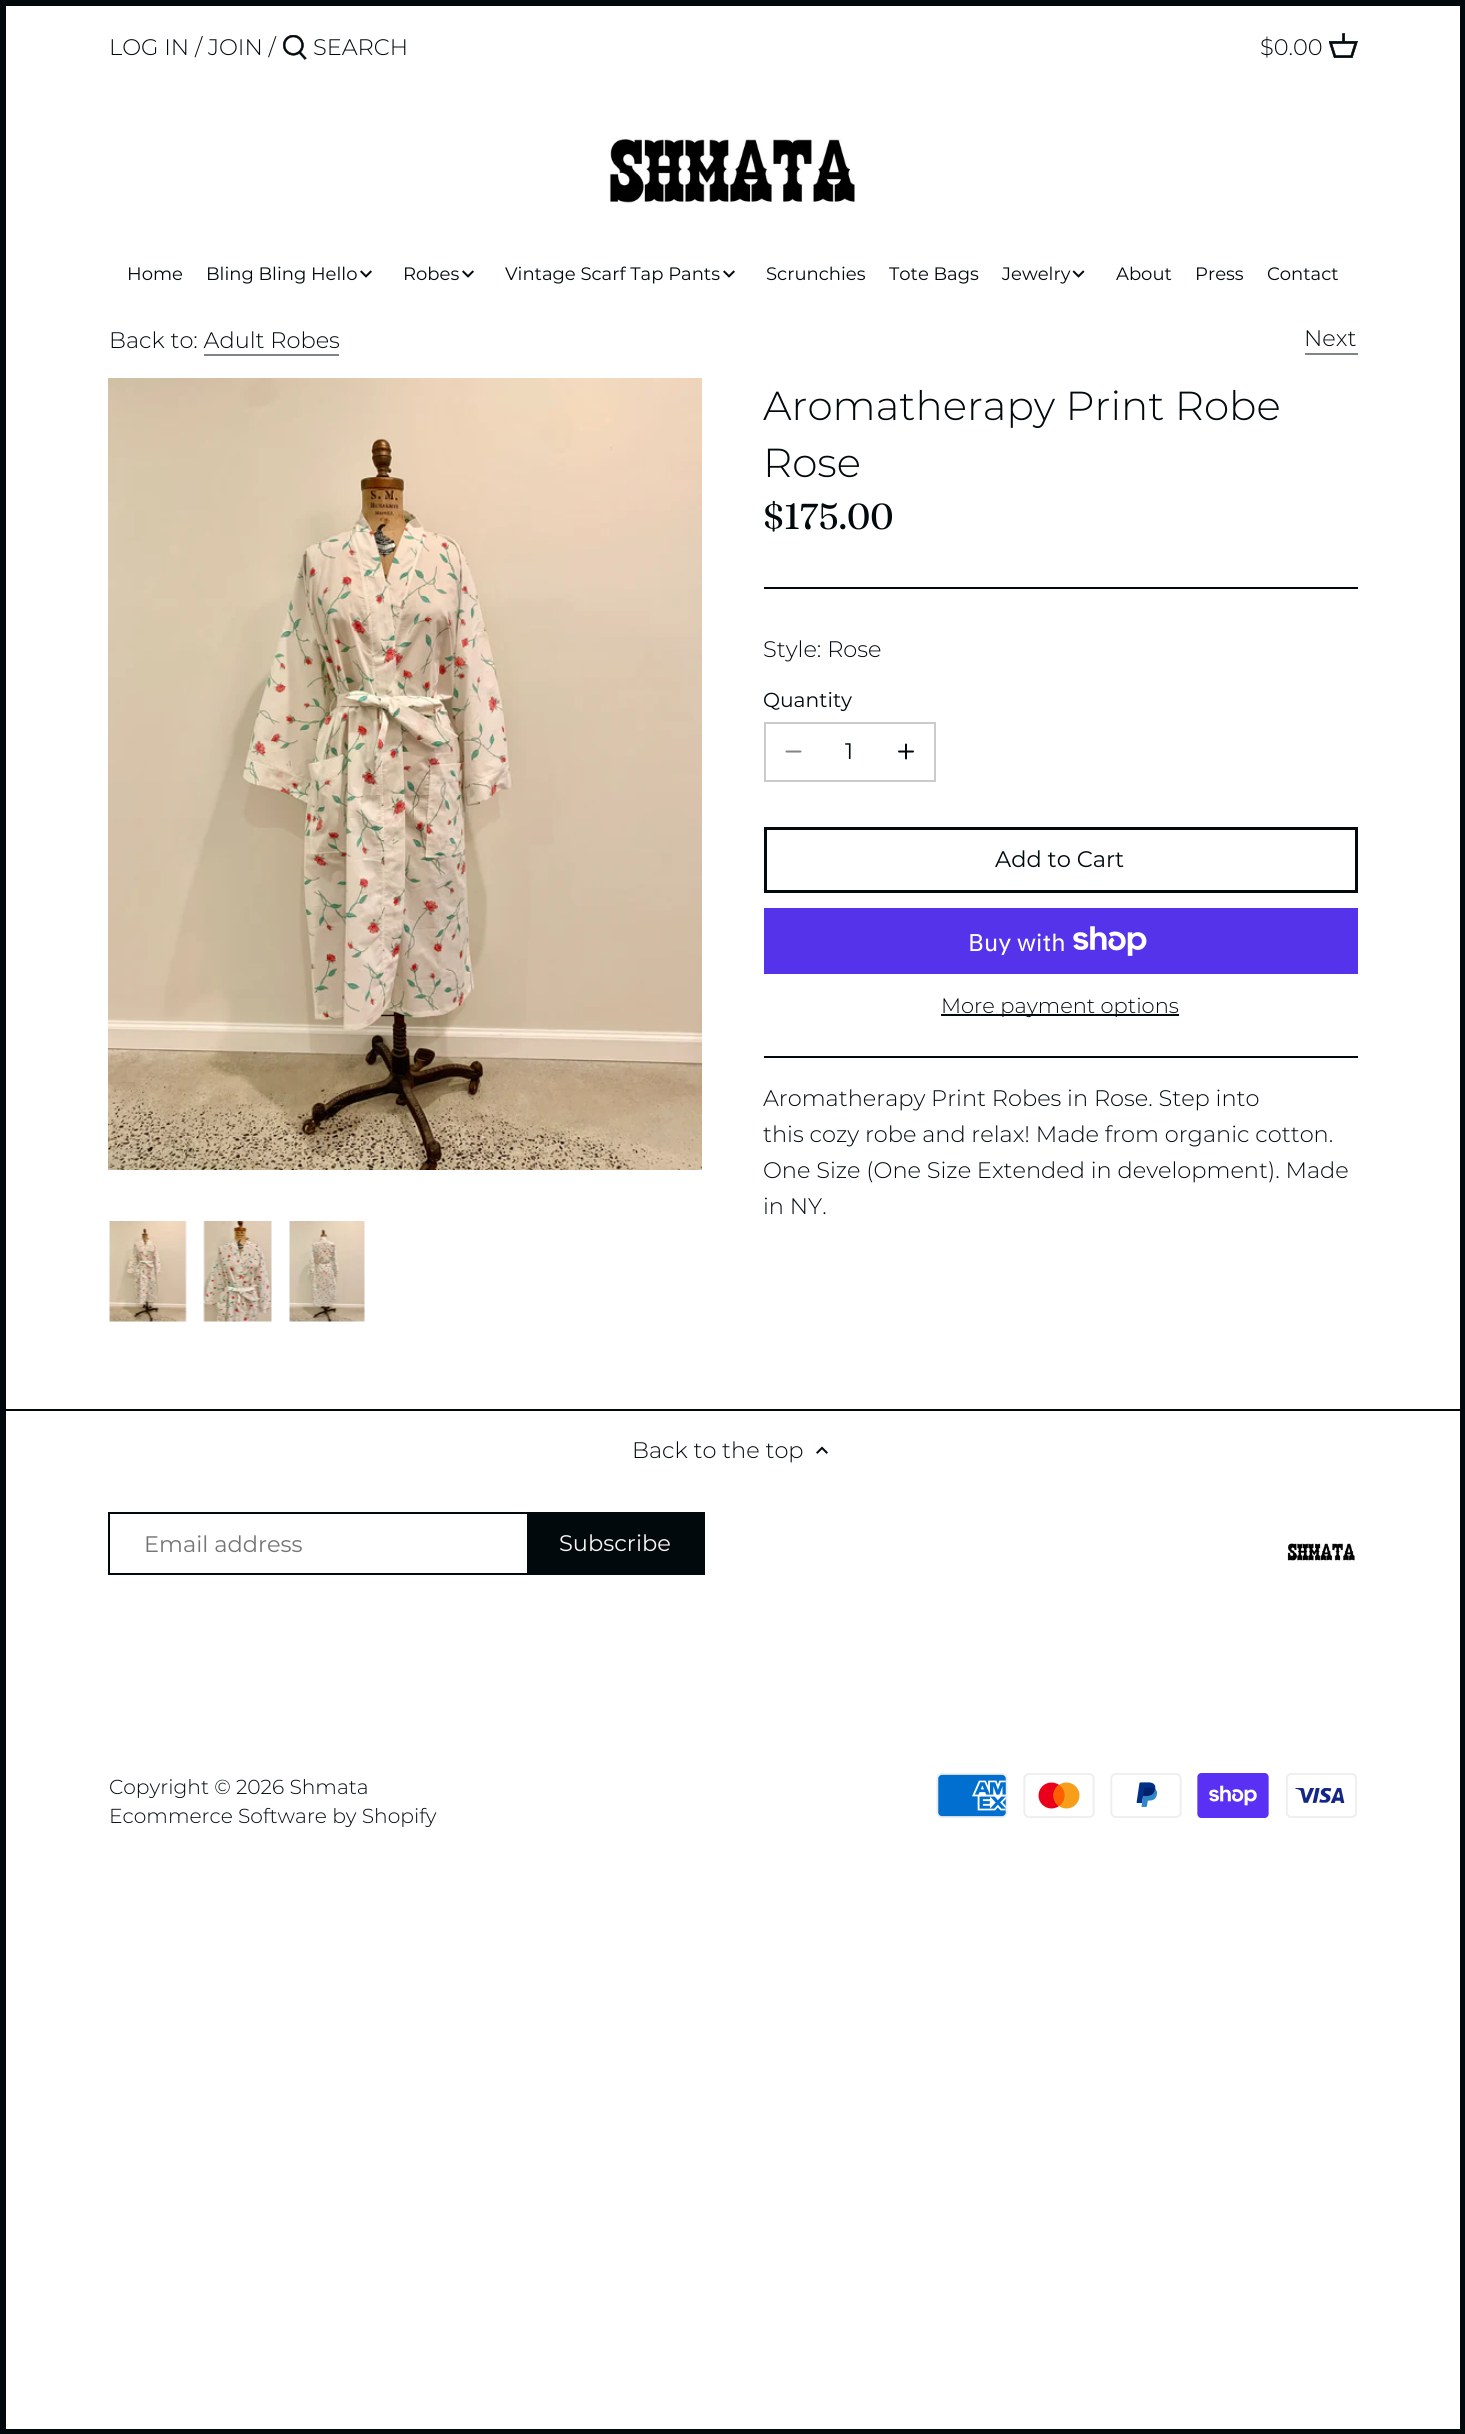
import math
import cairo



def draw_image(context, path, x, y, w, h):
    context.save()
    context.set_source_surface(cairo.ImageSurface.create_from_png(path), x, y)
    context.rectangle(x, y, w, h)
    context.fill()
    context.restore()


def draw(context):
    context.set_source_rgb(1, 1, 1)
    context.paint()
    context.rectangle(3, 3, 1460, 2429)
    context.set_source_rgb(1 / 255, 9 / 255, 13 / 255)
    context.set_line_width(6)
    context.stroke()
    draw_image(context, "images/1.png", 282, 35, 25, 25)
    draw_image(context, "images/2.png", 1329, 33, 29, 25)
    draw_image(context, "images/3.png", 609, 138, 247, 66)
    draw_image(context, "images/4.png", 360, 270, 12, 8)
    draw_image(context, "images/4.png", 462, 270, 12, 8)
    draw_image(context, "images/4.png", 723, 270, 12, 8)
    draw_image(context, "images/5.png", 1072, 270, 13, 8)
    context.set_source_rgb(128 / 255, 132 / 255, 134 / 255)
    context.rectangle(204, 354, 135, 2)
    context.fill()
    context.rectangle(1305, 353, 53, 2)
    context.fill()
    draw_image(context, "images/6.png", 108, 378, 594, 792)
    draw_image(context, "images/7.png", 109, 1221, 78, 101)
    draw_image(context, "images/8.png", 203, 1221, 69, 101)
    draw_image(context, "images/9.png", 289, 1221, 76, 101)
    context.set_source_rgb(1 / 255, 9 / 255, 13 / 255)
    context.rectangle(764, 587, 594, 2)
    context.fill()
    context.rectangle(764, 1056, 594, 2)
    context.fill()
    context.rectangle(765, 723, 170, 58)
    context.set_source_rgb(202 / 255, 203 / 255, 204 / 255)
    context.set_line_width(2)
    context.stroke()
    context.new_path()
    context.move_to(786.5, 751.5)
    context.line_to(800.5, 751.5)
    context.set_source_rgb(128 / 255, 132 / 255, 134 / 255)
    context.set_line_cap(cairo.LineCap.ROUND)
    context.set_line_join(cairo.LineJoin.ROUND)
    context.stroke()
    context.new_path()
    context.move_to(906, 744.5)
    context.line_to(906, 758.5)
    context.move_to(899, 751.5)
    context.line_to(913, 751.5)
    context.set_source_rgb(1 / 255, 9 / 255, 13 / 255)
    context.stroke()
    context.rectangle(765.5, 828.5, 591, 63)
    context.set_line_width(3)
    context.set_line_cap(cairo.LineCap.BUTT)
    context.set_line_join(cairo.LineJoin.MITER)
    context.stroke()
    context.set_source_rgb(84 / 255, 51 / 255, 235 / 255)
    context.rectangle(764, 908, 594, 66)
    context.fill()
    draw_image(context, "images/10.png", 1073, 926, 74, 30)
    context.set_source_rgb(1 / 255, 9 / 255, 13 / 255)
    context.rectangle(941, 1014, 238, 2)
    context.fill()
    context.rectangle(6, 1409, 1454, 2)
    context.fill()
    draw_image(context, "images/11.png", 816, 1446, 12, 8)
    context.rectangle(109, 1513, 594, 61)
    context.set_line_width(2)
    context.stroke()
    context.rectangle(527, 1512, 178, 63)
    context.fill()
    draw_image(context, "images/12.png", 1287, 1543, 68, 19)
    draw_image(context, "images/13.png", 936, 1773, 72, 45)
    draw_image(context, "images/14.png", 1023, 1773, 72, 45)
    draw_image(context, "images/15.png", 1110, 1773, 72, 45)
    draw_image(context, "images/16.png", 1197, 1773, 72, 45)
    draw_image(context, "images/17.png", 1286, 1773, 71, 45)
    context.select_font_face("Montserrat Light")
    context.set_font_size(22.5)
    context.move_to(109, 55)
    context.show_text("LOG IN / JOIN /")
    context.move_to(313, 55)
    context.show_text("SEARCH")
    context.move_to(1260, 55)
    context.show_text("$0.00")
    context.select_font_face("Montserrat")
    context.set_font_size(18)
    context.move_to(127, 280)
    context.show_text("Home")
    context.move_to(206, 280)
    context.show_text("Bling Bling Hello")
    context.move_to(403, 280)
    context.show_text("Robes")
    context.move_to(505, 280)
    context.show_text("Vintage Scarf Tap Pants")
    context.move_to(766, 280)
    context.show_text("Scrunchies")
    context.move_to(889, 280)
    context.show_text("Tote Bags")
    context.move_to(1002, 280)
    context.show_text("Jewelry")
    context.move_to(1116, 280)
    context.show_text("About")
    context.move_to(1195, 280)
    context.show_text("Press")
    context.move_to(1267, 280)
    context.show_text("Contact")
    context.select_font_face("Montserrat Light")
    context.set_font_size(22.5)
    context.move_to(109, 348)
    context.show_text("Back to: Adult Robes")
    context.move_to(1304, 346)
    context.show_text("Next")
    context.set_font_size(40.5)
    context.move_to(763, 420)
    context.show_text("Aromatherapy Print Robe")
    context.move_to(763, 477)
    context.show_text("Rose")
    context.select_font_face("Fraunces")
    context.set_font_size(36)
    context.move_to(763, 529)
    context.show_text("$175.00")
    context.select_font_face("Montserrat Light")
    context.set_font_size(22.5)
    context.move_to(763, 657)
    context.show_text("Style: Rose")
    context.select_font_face("Montserrat")
    context.set_font_size(20.25)
    context.move_to(763, 707)
    context.show_text("Quantity")
    context.set_font_size(22.5)
    context.move_to(845, 759)
    context.show_text("1")
    context.move_to(995, 867)
    context.show_text("Add to Cart")
    context.select_font_face("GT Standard")
    context.set_font_size(24)
    context.set_source_rgb(1, 1, 1)
    context.move_to(968, 951)
    context.show_text("Buy with")
    context.select_font_face("Montserrat Light")
    context.set_font_size(21)
    context.set_source_rgb(1 / 255, 9 / 255, 13 / 255)
    context.move_to(941, 1013)
    context.show_text("More payment options")
    context.set_font_size(22.5)
    context.move_to(763, 1106)
    context.show_text("Aromatherapy Print Robes in Rose. Step into")
    context.move_to(763, 1142)
    context.show_text("this cozy robe and relax! Made from organic cotton.")
    context.move_to(763, 1178)
    context.show_text("One Size (One Size Extended in development). Made")
    context.move_to(763, 1214)
    context.show_text("in NY.")
    context.move_to(632, 1458)
    context.show_text("Back to the top")
    context.select_font_face("Montserrat")
    context.set_source_rgb(117 / 255, 117 / 255, 117 / 255)
    context.move_to(144, 1552)
    context.show_text("Email address")
    context.set_source_rgb(250 / 255, 244 / 255, 244 / 255)
    context.move_to(559, 1551)
    context.show_text("Subscribe")
    context.select_font_face("Montserrat Light")
    context.set_font_size(20.25)
    context.set_source_rgb(1 / 255, 9 / 255, 13 / 255)
    context.move_to(109, 1794)
    context.show_text("Copyright © 2026 Shmata")
    context.move_to(109, 1823)
    context.show_text("Ecommerce Software by Shopify")


surface = cairo.ImageSurface(cairo.Format.RGB24, 1465, 2434)
context = cairo.Context(surface)
options = cairo.FontOptions()
options.set_hint_metrics(cairo.HintMetrics.OFF)
options.set_hint_style(cairo.HintStyle.NONE)
context.set_font_options(options)
context.set_miter_limit(4)
draw(context)
surface.write_to_png("out.png")
